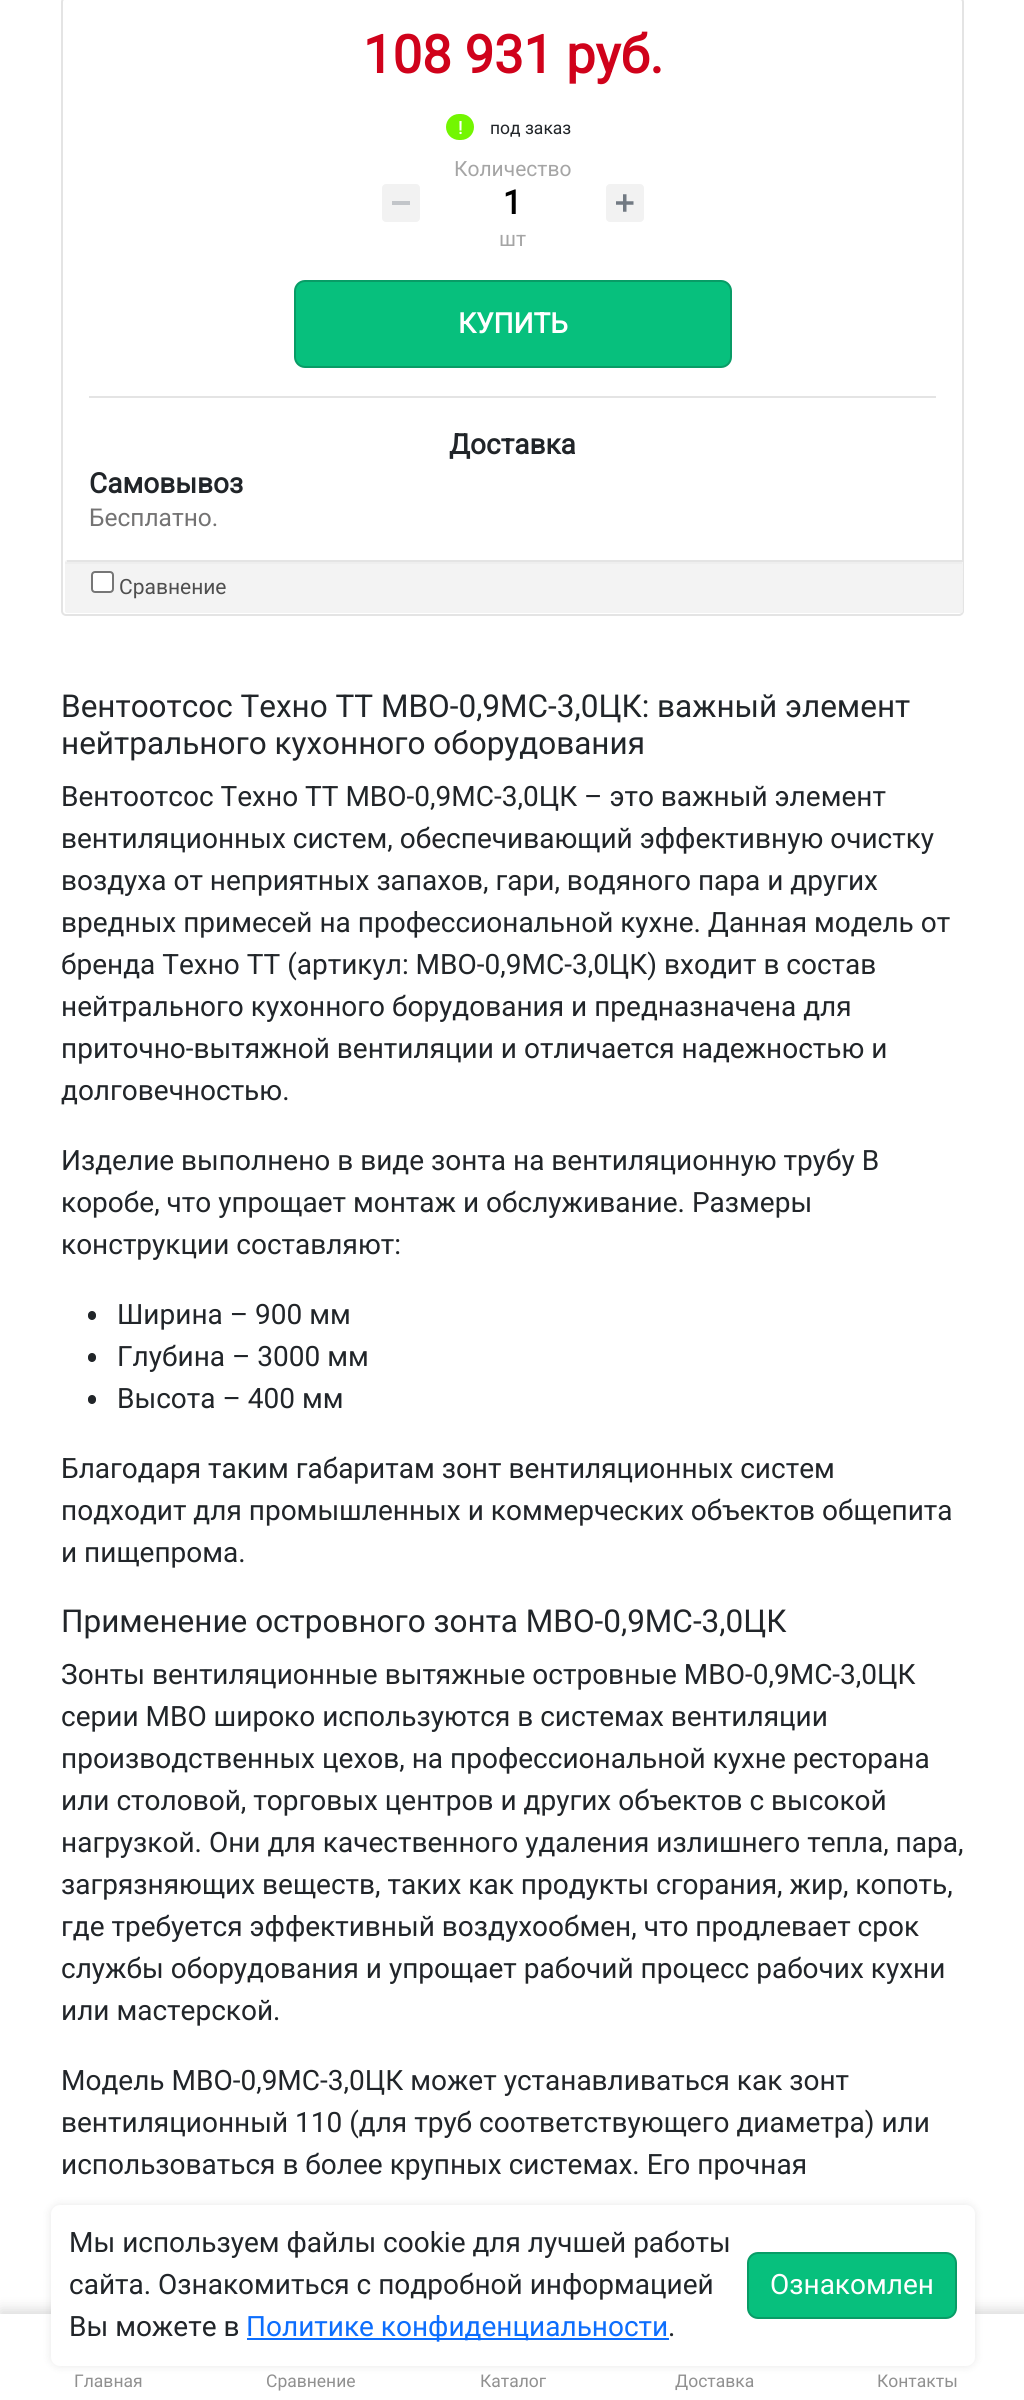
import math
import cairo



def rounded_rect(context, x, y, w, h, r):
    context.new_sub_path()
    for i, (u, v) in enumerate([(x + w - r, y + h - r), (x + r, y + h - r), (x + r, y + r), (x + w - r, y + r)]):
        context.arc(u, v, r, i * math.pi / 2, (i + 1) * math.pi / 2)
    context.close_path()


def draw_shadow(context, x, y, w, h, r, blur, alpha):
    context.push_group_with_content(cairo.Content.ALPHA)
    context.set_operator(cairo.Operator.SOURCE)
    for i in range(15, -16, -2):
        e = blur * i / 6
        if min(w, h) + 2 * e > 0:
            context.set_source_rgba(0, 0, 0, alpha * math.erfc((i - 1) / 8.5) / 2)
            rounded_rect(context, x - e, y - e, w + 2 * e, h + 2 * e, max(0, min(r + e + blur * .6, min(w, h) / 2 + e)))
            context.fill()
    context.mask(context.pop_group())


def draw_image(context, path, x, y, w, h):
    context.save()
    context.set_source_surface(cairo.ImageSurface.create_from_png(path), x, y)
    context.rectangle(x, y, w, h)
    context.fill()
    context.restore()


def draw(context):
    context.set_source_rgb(1, 1, 1)
    context.paint()
    rounded_rect(context, 62, -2, 901, 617, 4)
    context.set_source_rgb(228 / 255, 228 / 255, 228 / 255)
    context.stroke()
    context.set_source_rgb(115 / 255, 246 / 255, 1 / 255)
    rounded_rect(context, 446, 114, 28, 26, 13)
    context.fill()
    context.set_source_rgb(242 / 255, 242 / 255, 242 / 255)
    rounded_rect(context, 382, 184, 38, 38, 4)
    context.fill()
    context.set_source_rgb(194 / 255, 197 / 255, 201 / 255)
    context.rectangle(392, 201, 18, 4)
    context.fill()
    context.set_source_rgb(242 / 255, 242 / 255, 242 / 255)
    rounded_rect(context, 606, 184, 38, 38, 4)
    context.fill()
    draw_image(context, "images/1.png", 616, 194, 18, 18)
    context.set_source_rgb(7 / 255, 192 / 255, 125 / 255)
    rounded_rect(context, 295, 281, 436, 86, 10)
    context.fill_preserve()
    context.set_source_rgb(8 / 255, 156 / 255, 102 / 255)
    context.stroke()
    context.set_source_rgb(228 / 255, 228 / 255, 228 / 255)
    context.rectangle(89, 396, 847, 2)
    context.fill()
    context.set_source_rgb(243 / 255, 243 / 255, 243 / 255)
    rounded_rect(context, 65, 560, 898, 53, 2)
    context.fill()
    context.set_source_rgb(238 / 255, 238 / 255, 238 / 255)
    context.new_path()
    context.move_to(961, 562)
    context.line_to(65, 562)
    context.line_to(65, 612)
    context.line_to(65, 564)
    context.line_to(962, 564)
    context.line_to(962, 612)
    context.curve_to(963, 611, 962, 567, 962, 562)
    context.close_path()
    context.fill()
    context.set_source_rgb(228 / 255, 228 / 255, 228 / 255)
    context.rectangle(67, 560, 896, 2)
    context.fill()
    context.set_source_rgb(1, 1, 1)
    rounded_rect(context, 92, 572, 21, 20, 3)
    context.fill_preserve()
    context.set_source_rgb(118 / 255, 118 / 255, 118 / 255)
    context.stroke()
    context.set_source_rgb(33 / 255, 37 / 255, 41 / 255)
    rounded_rect(context, 88, 1311, 8, 9, 4)
    context.fill()
    rounded_rect(context, 88, 1353, 8, 9, 4)
    context.fill()
    rounded_rect(context, 88, 1395, 8, 9, 4)
    context.fill()
    context.set_source_rgb(0, 0, 0)
    draw_shadow(context, 0, 2310, 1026, 88, 0, 7, 0.15)
    context.set_source_rgb(1, 1, 1)
    context.rectangle(0, 2314, 1024, 86)
    context.fill()
    context.set_source_rgb(0, 0, 0)
    draw_shadow(context, 51, 2205, 924, 161, 9, 4.5, 0.1)
    context.set_source_rgb(1, 1, 1)
    rounded_rect(context, 51, 2205, 924, 161, 9)
    context.fill()
    context.set_source_rgb(13 / 255, 110 / 255, 253 / 255)
    context.rectangle(247, 2338, 422, 2)
    context.fill()
    context.set_source_rgb(7 / 255, 192 / 255, 125 / 255)
    rounded_rect(context, 748, 2253, 208, 65, 10)
    context.fill_preserve()
    context.set_source_rgb(8 / 255, 156 / 255, 102 / 255)
    context.stroke()
    context.select_font_face("Roboto", cairo.FontSlant.NORMAL, cairo.FontWeight.BOLD)
    context.set_font_size(52.5)
    context.set_source_rgb(208 / 255, 2 / 255, 27 / 255)
    context.move_to(363, 73)
    context.show_text("108 931 руб.")
    context.set_font_size(17.5)
    context.set_source_rgb(1, 1, 1)
    context.move_to(458, 134)
    context.show_text("!")
    context.select_font_face("Roboto")
    context.set_source_rgb(33 / 255, 37 / 255, 41 / 255)
    context.move_to(490, 134)
    context.show_text("под заказ")
    context.set_font_size(21)
    context.set_source_rgb(165 / 255, 165 / 255, 165 / 255)
    context.move_to(454, 176)
    context.show_text("Количество")
    context.select_font_face("Roboto", cairo.FontSlant.NORMAL, cairo.FontWeight.BOLD)
    context.set_font_size(33)
    context.set_source_rgb(0, 0, 0)
    context.move_to(503, 214)
    context.show_text("1")
    context.select_font_face("Roboto")
    context.set_font_size(21)
    context.set_source_rgb(165 / 255, 165 / 255, 165 / 255)
    context.move_to(499, 246)
    context.show_text("шт")
    context.select_font_face("Roboto", cairo.FontSlant.NORMAL, cairo.FontWeight.BOLD)
    context.set_font_size(28)
    context.set_source_rgb(1, 1, 1)
    context.move_to(458, 333)
    context.show_text("КУПИТЬ")
    context.set_source_rgb(33 / 255, 37 / 255, 41 / 255)
    context.move_to(449, 454)
    context.show_text("Доставка")
    context.move_to(89, 493)
    context.show_text("Самовывоз")
    context.select_font_face("Roboto")
    context.set_font_size(24.5)
    context.set_source_rgb(116 / 255, 115 / 255, 115 / 255)
    context.move_to(89, 526)
    context.show_text("Бесплатно.")
    context.set_font_size(21)
    context.set_source_rgb(78 / 255, 78 / 255, 78 / 255)
    context.move_to(119, 594)
    context.show_text("Сравнение")
    context.set_font_size(31.5)
    context.set_source_rgb(33 / 255, 37 / 255, 41 / 255)
    context.move_to(61, 717)
    context.show_text("Вентоотсос Техно ТТ МВО-0,9МС-3,0ЦК: важный элемент")
    context.move_to(61, 754)
    context.show_text("нейтрального кухонного оборудования")
    context.set_font_size(28)
    context.move_to(61, 806)
    context.show_text("Вентоотсос Техно ТТ МВО-0,9МС-3,0ЦК – это важный элемент")
    context.move_to(61, 848)
    context.show_text("вентиляционных систем, обеспечивающий эффективную очистку")
    context.move_to(61, 890)
    context.show_text("воздуха от неприятных запахов, гари, водяного пара и других")
    context.move_to(61, 932)
    context.show_text("вредных примесей на профессиональной кухне. Данная модель от")
    context.move_to(61, 974)
    context.show_text("бренда Техно ТТ (артикул: МВО-0,9МС-3,0ЦК) входит в состав")
    context.move_to(61, 1016)
    context.show_text("нейтрального кухонного борудования и предназначена для")
    context.move_to(61, 1058)
    context.show_text("приточно-вытяжной вентиляции и отличается надежностью и")
    context.move_to(61, 1100)
    context.show_text("долговечностью.")
    context.move_to(61, 1170)
    context.show_text("Изделие выполнено в виде зонта на вентиляционную трубу В")
    context.move_to(61, 1212)
    context.show_text("коробе, что упрощает монтаж и обслуживание. Размеры")
    context.move_to(61, 1254)
    context.show_text("конструкции составляют:")
    context.move_to(117, 1324)
    context.show_text("Ширина – 900 мм")
    context.move_to(117, 1366)
    context.show_text("Глубина – 3000 мм")
    context.move_to(117, 1408)
    context.show_text("Высота – 400 мм")
    context.move_to(61, 1478)
    context.show_text("Благодаря таким габаритам зонт вентиляционных систем")
    context.move_to(61, 1520)
    context.show_text("подходит для промышленных и коммерческих объектов общепита")
    context.move_to(61, 1562)
    context.show_text("и пищепрома.")
    context.set_font_size(31.5)
    context.move_to(61, 1632)
    context.show_text("Применение островного зонта МВО-0,9МС-3,0ЦК")
    context.set_font_size(28)
    context.move_to(61, 1684)
    context.show_text("Зонты вентиляционные вытяжные островные МВО-0,9МС-3,0ЦК")
    context.move_to(61, 1726)
    context.show_text("серии МВО широко используются в системах вентиляции")
    context.move_to(61, 1768)
    context.show_text("производственных цехов, на профессиональной кухне ресторана")
    context.move_to(61, 1810)
    context.show_text("или столовой, торговых центров и других объектов с высокой")
    context.move_to(61, 1852)
    context.show_text("нагрузкой. Они для качественного удаления излишнего тепла, пара,")
    context.move_to(61, 1894)
    context.show_text("загрязняющих веществ, таких как продукты сгорания, жир, копоть,")
    context.move_to(61, 1936)
    context.show_text("где требуется эффективный воздухообмен, что продлевает срок")
    context.move_to(61, 1978)
    context.show_text("службы оборудования и упрощает рабочий процесс рабочих кухни")
    context.move_to(61, 2020)
    context.show_text("или мастерской.")
    context.move_to(61, 2090)
    context.show_text("Модель МВО-0,9МС-3,0ЦК может устанавливаться как зонт")
    context.move_to(61, 2132)
    context.show_text("вентиляционный 110 (для труб соответствующего диаметра) или")
    context.move_to(61, 2174)
    context.show_text("использоваться в более крупных системах. Его прочная")
    context.move_to(69, 2252)
    context.show_text("Мы используем файлы cookie для лучшей работы")
    context.move_to(69, 2294)
    context.show_text("сайта. Ознакомиться с подробной информацией")
    context.move_to(69, 2336)
    context.show_text("Вы можете в")
    context.set_source_rgb(13 / 255, 110 / 255, 253 / 255)
    context.move_to(246, 2336)
    context.show_text("Политике конфиденциальности")
    context.set_source_rgb(33 / 255, 37 / 255, 41 / 255)
    context.move_to(668, 2336)
    context.show_text(".")
    context.set_source_rgb(1, 1, 1)
    context.move_to(770, 2294)
    context.show_text("Ознакомлен")
    context.set_font_size(17.5)
    context.set_source_rgb(144 / 255, 144 / 255, 144 / 255)
    context.move_to(74, 2387)
    context.show_text("Главная")
    context.move_to(266, 2387)
    context.show_text("Сравнение")
    context.move_to(480, 2387)
    context.show_text("Каталог")
    context.move_to(675, 2387)
    context.show_text("Доставка")
    context.move_to(877, 2387)
    context.show_text("Контакты")


surface = cairo.ImageSurface(cairo.Format.RGB24, 1024, 2400)
context = cairo.Context(surface)
options = cairo.FontOptions()
options.set_hint_metrics(cairo.HintMetrics.OFF)
options.set_hint_style(cairo.HintStyle.NONE)
context.set_font_options(options)
context.set_miter_limit(4)
draw(context)
surface.write_to_png("out.png")
